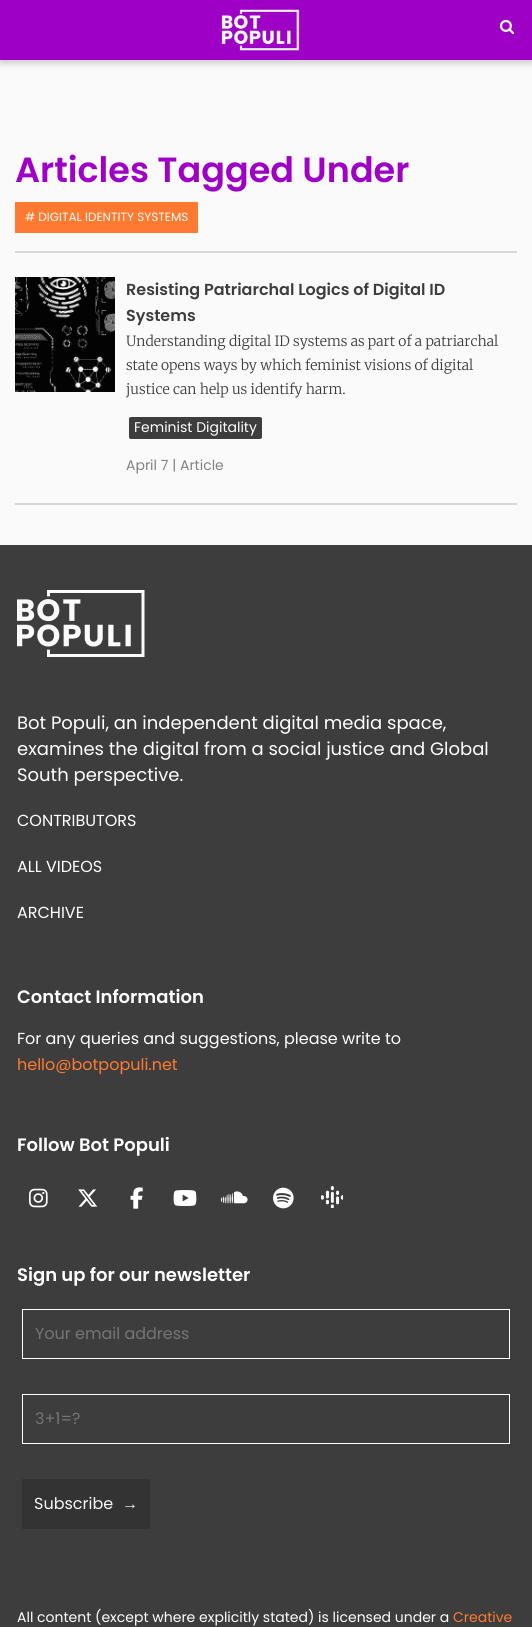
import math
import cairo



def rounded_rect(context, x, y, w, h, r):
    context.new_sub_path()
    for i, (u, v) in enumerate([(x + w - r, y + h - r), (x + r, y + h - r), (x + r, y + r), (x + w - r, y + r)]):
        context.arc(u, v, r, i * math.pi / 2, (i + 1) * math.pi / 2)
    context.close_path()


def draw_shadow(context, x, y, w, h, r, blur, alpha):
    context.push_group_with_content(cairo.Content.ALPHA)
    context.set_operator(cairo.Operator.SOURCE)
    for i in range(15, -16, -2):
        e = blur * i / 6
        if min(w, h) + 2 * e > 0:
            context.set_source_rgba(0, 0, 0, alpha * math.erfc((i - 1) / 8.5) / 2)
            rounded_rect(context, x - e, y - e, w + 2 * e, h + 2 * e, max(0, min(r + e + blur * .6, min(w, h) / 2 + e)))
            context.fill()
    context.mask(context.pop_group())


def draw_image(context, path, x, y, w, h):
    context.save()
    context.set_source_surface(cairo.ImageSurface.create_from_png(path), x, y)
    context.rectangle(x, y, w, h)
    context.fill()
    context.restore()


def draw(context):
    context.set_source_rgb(250 / 255, 250 / 255, 250 / 255)
    context.paint()
    context.set_source_rgb(0, 0, 0)
    draw_shadow(context, 0, 2, 532, 60, 0, 4, 0.25)
    context.set_source_rgb(159 / 255, 0, 197 / 255)
    context.rectangle(0, 0, 532, 60)
    context.fill()
    draw_image(context, "images/1.png", 221, 9, 79, 42)
    draw_image(context, "images/2.png", 499, 19, 16, 16)
    context.set_source_rgb(1, 122 / 255, 48 / 255)
    context.rectangle(15, 202, 183, 31)
    context.fill()
    context.set_source_rgb(215 / 255, 215 / 255, 215 / 255)
    context.rectangle(15, 251, 502, 2)
    context.fill()
    context.rectangle(15, 503, 502, 2)
    context.fill()
    draw_image(context, "images/3.png", 15, 277, 100, 115)
    context.set_source_rgb(61 / 255, 61 / 255, 61 / 255)
    rounded_rect(context, 129, 417, 133, 22, 2)
    context.fill()
    context.rectangle(0, 545, 532, 1082)
    context.fill()
    draw_image(context, "images/4.png", 17, 590, 128, 67)
    draw_image(context, "images/5.png", 29, 1188, 19, 20)
    draw_image(context, "images/6.png", 78, 1189, 20, 18)
    draw_image(context, "images/7.png", 130, 1187, 13, 22)
    draw_image(context, "images/8.png", 173, 1190, 24, 16)
    draw_image(context, "images/9.png", 221, 1191, 27, 13)
    draw_image(context, "images/10.png", 273, 1187, 21, 22)
    draw_image(context, "images/11.png", 321, 1186, 22, 22)
    context.rectangle(22.5, 1309.5, 487, 49)
    context.set_source_rgb(1, 1, 1)
    context.set_line_width(1)
    context.stroke()
    context.rectangle(22.5, 1394.5, 487, 49)
    context.stroke()
    context.set_source_rgb(51 / 255, 51 / 255, 51 / 255)
    context.rectangle(22, 1479, 128, 50)
    context.fill()
    context.select_font_face("Poppins SemiBold")
    context.set_font_size(35)
    context.set_source_rgb(159 / 255, 0, 197 / 255)
    context.move_to(15, 182)
    context.show_text("Articles Tagged Under")
    context.select_font_face("Poppins")
    context.set_font_size(12)
    context.set_source_rgb(1, 1, 1)
    context.move_to(25, 221)
    context.show_text("# DIGITAL IDENTITY SYSTEMS")
    context.select_font_face("Poppins SemiBold")
    context.set_font_size(16)
    context.set_source_rgb(61 / 255, 61 / 255, 61 / 255)
    context.move_to(126, 295)
    context.show_text("Resisting Patriarchal Logics of Digital ID")
    context.move_to(126, 321)
    context.show_text("Systems")
    context.select_font_face("Merriweather Light")
    context.set_font_size(14)
    context.move_to(126, 346)
    context.show_text("Understanding digital ID systems as part of a patriarchal")
    context.move_to(126, 370)
    context.show_text("state opens ways by which feminist visions of digital")
    context.move_to(126, 394)
    context.show_text("justice can help us identify harm.")
    context.select_font_face("Poppins")
    context.set_source_rgb(1, 1, 1)
    context.move_to(134, 432)
    context.show_text("Feminist Digitality")
    context.set_source_rgb(130 / 255, 130 / 255, 130 / 255)
    context.move_to(126, 470)
    context.show_text("April 7 | Article")
    context.set_font_size(18)
    context.set_source_rgb(1, 1, 1)
    context.move_to(17, 729)
    context.show_text("Bot Populi, an independent digital media space,")
    context.move_to(17, 755)
    context.show_text("examines the digital from a social justice and Global")
    context.move_to(17, 781)
    context.show_text("South perspective.")
    context.set_font_size(16)
    context.move_to(17, 826)
    context.show_text("CONTRIBUTORS")
    context.move_to(17, 872)
    context.show_text("ALL VIDEOS")
    context.move_to(17, 918)
    context.show_text("ARCHIVE")
    context.select_font_face("Poppins SemiBold")
    context.set_font_size(18)
    context.move_to(17, 1003)
    context.show_text("Contact Information")
    context.select_font_face("Poppins")
    context.set_font_size(16)
    context.move_to(17, 1044)
    context.show_text("For any queries and suggestions, please write to")
    context.set_source_rgb(1, 122 / 255, 48 / 255)
    context.move_to(17, 1070)
    context.show_text("hello@botpopuli.net")
    context.select_font_face("Poppins SemiBold")
    context.set_font_size(18)
    context.set_source_rgb(1, 1, 1)
    context.move_to(17, 1151)
    context.show_text("Follow Bot Populi")
    context.move_to(17, 1281)
    context.show_text("Sign up for our newsletter")
    context.select_font_face("Poppins")
    context.set_font_size(16)
    context.set_source_rgb(117 / 255, 117 / 255, 117 / 255)
    context.move_to(35, 1339)
    context.show_text("Your email address")
    context.move_to(35, 1424)
    context.show_text("3+1=?")
    context.set_source_rgb(247 / 255, 247 / 255, 247 / 255)
    context.move_to(34, 1509)
    context.show_text("Subscribe")
    context.select_font_face("Liberation Serif")
    context.move_to(122, 1509)
    context.show_text("→")
    context.select_font_face("Poppins")
    context.set_font_size(14)
    context.set_source_rgb(1, 1, 1)
    context.move_to(17, 1622)
    context.show_text("All content (except where explicitly stated) is licensed under a")
    context.set_source_rgb(1, 122 / 255, 48 / 255)
    context.move_to(453, 1622)
    context.show_text("Creative")


surface = cairo.ImageSurface(cairo.Format.RGB24, 532, 1627)
context = cairo.Context(surface)
options = cairo.FontOptions()
options.set_hint_metrics(cairo.HintMetrics.OFF)
options.set_hint_style(cairo.HintStyle.NONE)
context.set_font_options(options)
context.set_miter_limit(4)
draw(context)
surface.write_to_png("out.png")
